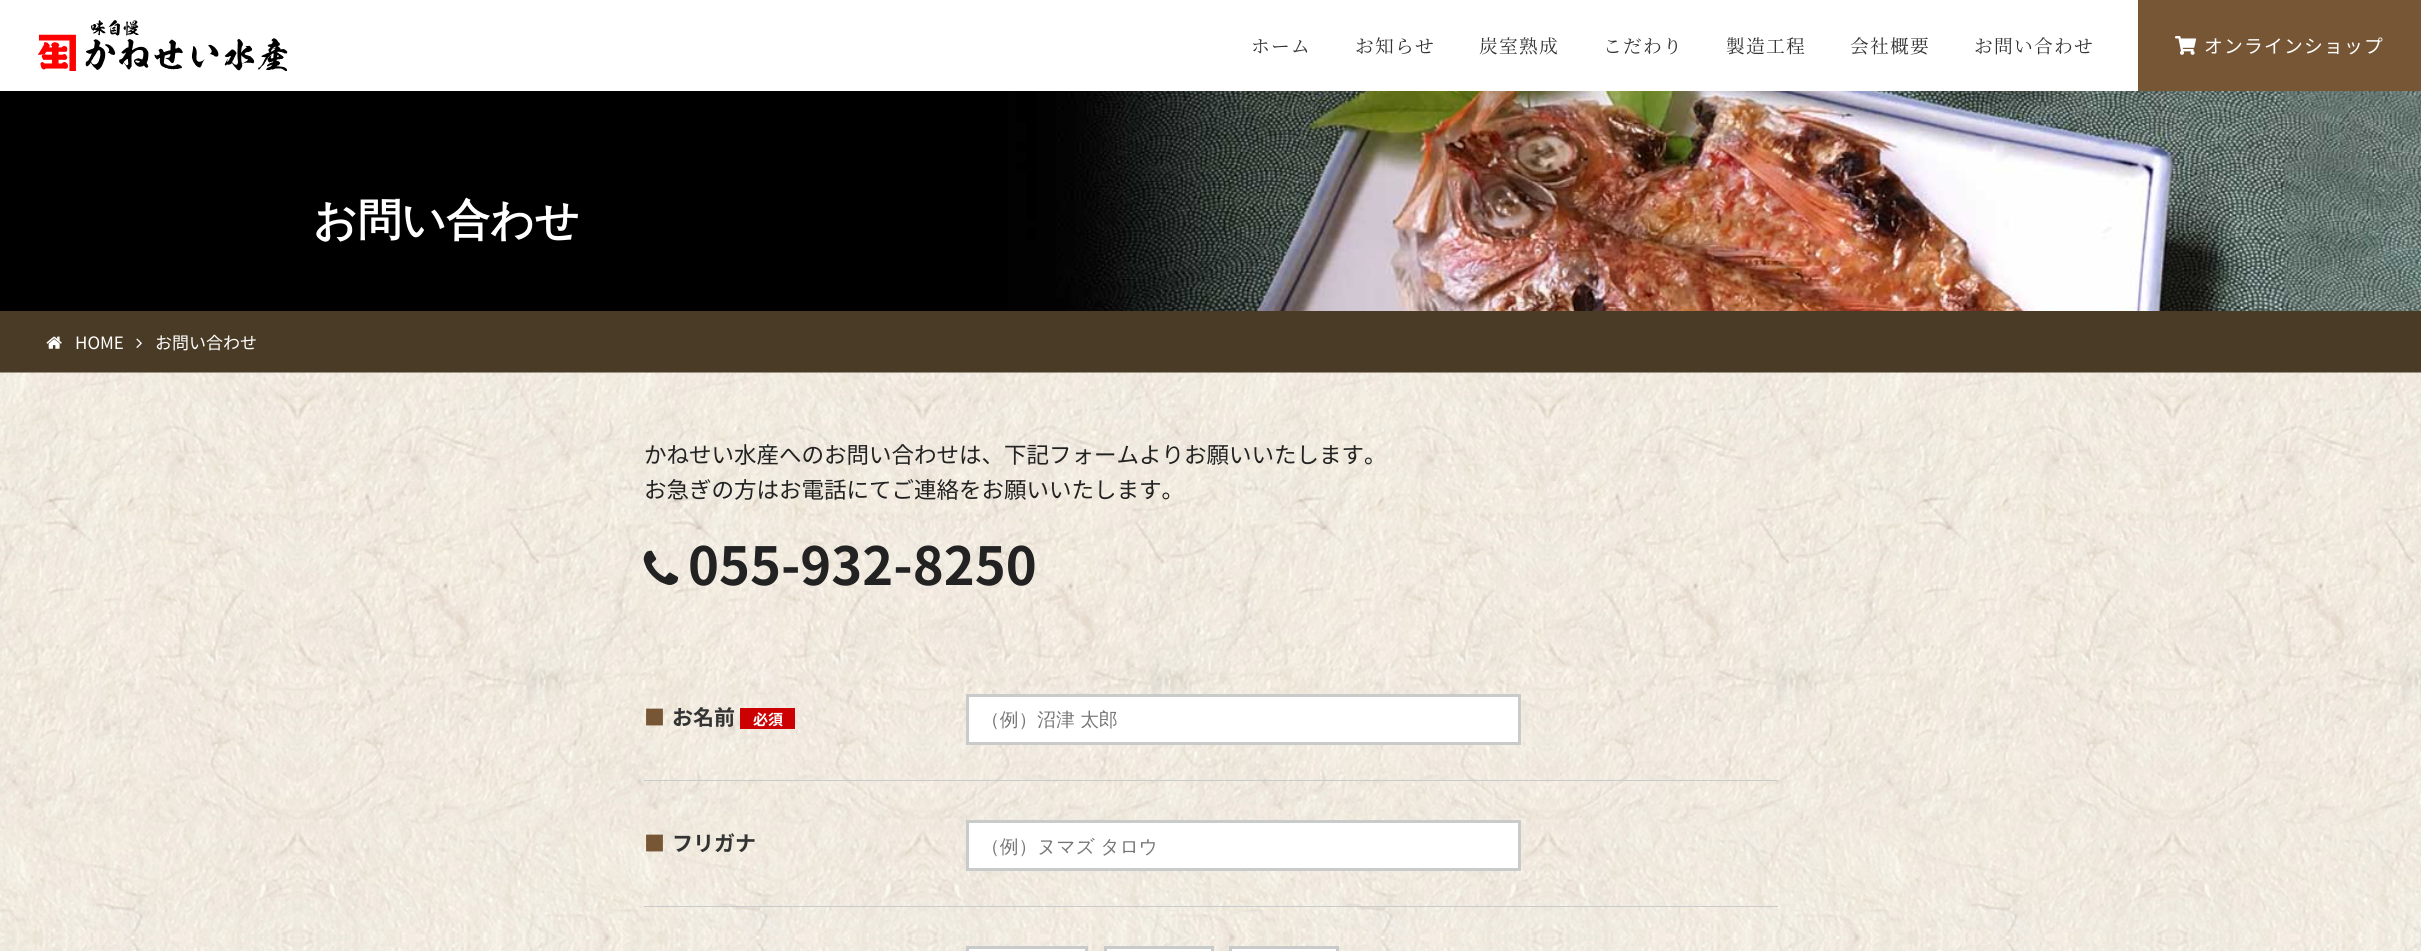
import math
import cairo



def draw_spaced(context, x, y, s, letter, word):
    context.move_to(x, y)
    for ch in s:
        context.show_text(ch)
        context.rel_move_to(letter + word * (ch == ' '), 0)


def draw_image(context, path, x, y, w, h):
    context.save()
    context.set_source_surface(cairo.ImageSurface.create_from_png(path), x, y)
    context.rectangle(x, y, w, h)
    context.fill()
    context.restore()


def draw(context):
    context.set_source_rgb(1, 1, 1)
    context.paint()
    draw_image(context, "images/1.png", 38, 20, 250, 51)
    context.set_source_rgb(118 / 255, 86 / 255, 53 / 255)
    context.rectangle(2138, 0, 283, 91)
    context.fill()
    draw_image(context, "images/2.png", 2175, 36, 22, 19)
    draw_image(context, "images/3.png", 0, 91, 2421, 220)
    context.set_source_rgb(74 / 255, 59 / 255, 38 / 255)
    context.rectangle(0, 311, 2421, 62)
    context.fill()
    draw_image(context, "images/4.png", 46, 336, 16, 13)
    draw_image(context, "images/5.png", 136, 338, 6, 10)
    draw_image(context, "images/6.png", 0, 372, 2421, 579)
    draw_image(context, "images/7.png", 643, 550, 36, 35)
    context.set_source_rgb(201 / 255, 202 / 255, 202 / 255)
    context.rectangle(644, 780, 1134, 1)
    context.fill()
    context.set_source_rgb(204 / 255, 0, 0)
    context.rectangle(740, 708, 55, 21)
    context.fill()
    context.set_source_rgb(1, 1, 1)
    context.rectangle(967.5, 695.5, 552, 48)
    context.fill_preserve()
    context.set_source_rgb(201 / 255, 202 / 255, 202 / 255)
    context.set_line_width(3)
    context.stroke()
    context.rectangle(644, 906, 1134, 1)
    context.fill()
    context.set_source_rgb(1, 1, 1)
    context.rectangle(967.5, 821.5, 552, 48)
    context.fill_preserve()
    context.set_source_rgb(201 / 255, 202 / 255, 202 / 255)
    context.stroke()
    context.set_source_rgb(1, 1, 1)
    context.rectangle(967.5, 947.5, 119, 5)
    context.fill_preserve()
    context.set_source_rgb(201 / 255, 202 / 255, 202 / 255)
    context.stroke()
    context.set_source_rgb(1, 1, 1)
    context.rectangle(1105.5, 947.5, 107, 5)
    context.fill_preserve()
    context.set_source_rgb(201 / 255, 202 / 255, 202 / 255)
    context.stroke()
    context.set_source_rgb(1, 1, 1)
    context.rectangle(1230.5, 947.5, 107, 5)
    context.fill_preserve()
    context.set_source_rgb(201 / 255, 202 / 255, 202 / 255)
    context.stroke()
    context.select_font_face("Noto Serif JP ExtraLight")
    context.set_font_size(18.75)
    context.set_source_rgb(51 / 255, 51 / 255, 51 / 255)
    draw_spaced(context, 1251, 53, "ホーム", 1.25, 0)
    draw_spaced(context, 1355, 53, "お知らせ", 1.25, 0)
    draw_spaced(context, 1479, 53, "炭室熟成", 1.25, 0)
    draw_spaced(context, 1603, 53, "こだわり", 1.25, 0)
    draw_spaced(context, 1726, 53, "製造工程", 1.25, 0)
    draw_spaced(context, 1850, 53, "会社概要", 1.25, 0)
    draw_spaced(context, 1974, 53, "お問い合わせ", 1.25, 0)
    context.select_font_face("Noto Sans JP")
    context.set_source_rgb(1, 1, 1)
    draw_spaced(context, 2204, 53, "オンラインショップ", 1.25, 0)
    context.select_font_face("WenQuanYi Zen Hei", cairo.FontSlant.NORMAL, cairo.FontWeight.BOLD)
    context.set_font_size(43.75)
    context.move_to(313, 235)
    context.show_text("お問い合わせ")
    context.select_font_face("Noto Sans JP")
    context.set_font_size(17)
    context.move_to(75, 349)
    context.show_text("HOME")
    context.move_to(155, 349)
    context.show_text("お問い合わせ")
    context.set_font_size(22.5)
    context.set_source_rgb(34 / 255, 34 / 255, 34 / 255)
    context.move_to(644, 463)
    context.show_text("かねせい水産へのお問い合わせは、下記フォームよりお願いいたします。")
    context.move_to(644, 498)
    context.show_text("お急ぎの方はお電話にてご連絡をお願いいたします。")
    context.select_font_face("Noto Sans JP", cairo.FontSlant.NORMAL, cairo.FontWeight.BOLD)
    context.set_font_size(52.5)
    context.move_to(688, 585)
    context.show_text("055-932-8250")
    context.set_font_size(21)
    context.set_source_rgb(118 / 255, 86 / 255, 53 / 255)
    context.move_to(644, 725)
    context.show_text("■")
    context.set_source_rgb(51 / 255, 51 / 255, 51 / 255)
    context.move_to(672, 725)
    context.show_text("お名前")
    context.set_font_size(15)
    context.set_source_rgb(1, 1, 1)
    context.move_to(753, 725)
    context.show_text("必須")
    context.select_font_face("WenQuanYi Zen Hei Medium")
    context.set_font_size(18.75)
    context.set_source_rgb(117 / 255, 117 / 255, 117 / 255)
    context.move_to(981, 726)
    context.show_text("（例）沼津 太郎")
    context.select_font_face("Noto Sans JP", cairo.FontSlant.NORMAL, cairo.FontWeight.BOLD)
    context.set_font_size(21)
    context.set_source_rgb(118 / 255, 86 / 255, 53 / 255)
    context.move_to(644, 851)
    context.show_text("■")
    context.set_source_rgb(51 / 255, 51 / 255, 51 / 255)
    context.move_to(672, 851)
    context.show_text("フリガナ")
    context.select_font_face("WenQuanYi Zen Hei Medium")
    context.set_font_size(18.75)
    context.set_source_rgb(117 / 255, 117 / 255, 117 / 255)
    context.move_to(981, 853)
    context.show_text("（例）ヌマズ タロウ")


surface = cairo.ImageSurface(cairo.Format.RGB24, 2421, 951)
context = cairo.Context(surface)
options = cairo.FontOptions()
options.set_hint_metrics(cairo.HintMetrics.OFF)
options.set_hint_style(cairo.HintStyle.NONE)
context.set_font_options(options)
context.set_miter_limit(4)
draw(context)
surface.write_to_png("out.png")
